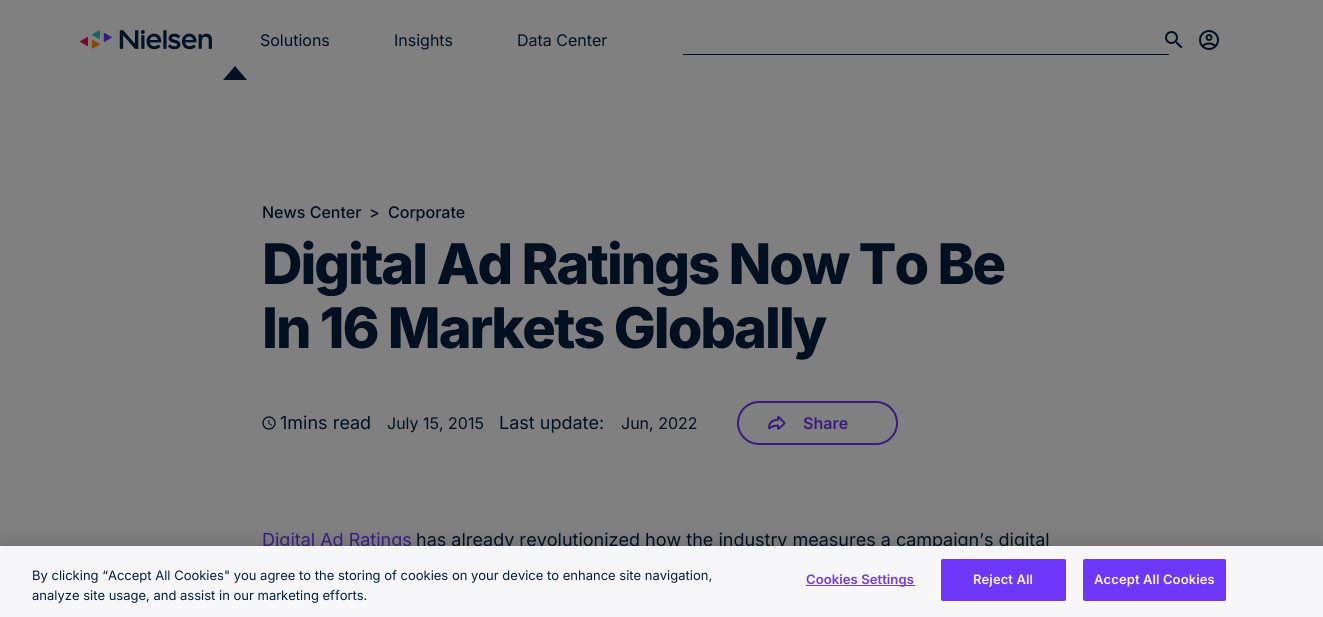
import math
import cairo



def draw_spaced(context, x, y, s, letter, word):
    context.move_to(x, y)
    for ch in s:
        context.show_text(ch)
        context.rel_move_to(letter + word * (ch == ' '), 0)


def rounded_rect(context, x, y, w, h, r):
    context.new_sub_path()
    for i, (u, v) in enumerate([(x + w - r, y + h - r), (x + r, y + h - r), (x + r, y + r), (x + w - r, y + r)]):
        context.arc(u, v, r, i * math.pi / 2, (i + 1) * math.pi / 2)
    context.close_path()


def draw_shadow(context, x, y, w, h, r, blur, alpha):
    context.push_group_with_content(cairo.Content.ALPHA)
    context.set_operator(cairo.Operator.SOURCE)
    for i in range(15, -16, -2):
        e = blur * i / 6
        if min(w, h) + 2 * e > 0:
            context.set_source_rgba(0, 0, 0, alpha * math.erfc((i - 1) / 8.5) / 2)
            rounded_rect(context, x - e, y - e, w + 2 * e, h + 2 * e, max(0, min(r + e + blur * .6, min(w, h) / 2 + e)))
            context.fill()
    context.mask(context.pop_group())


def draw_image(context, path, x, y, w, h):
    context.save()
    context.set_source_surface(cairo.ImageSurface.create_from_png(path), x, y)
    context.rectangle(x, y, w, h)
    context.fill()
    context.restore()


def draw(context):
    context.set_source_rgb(128 / 255, 128 / 255, 128 / 255)
    context.paint()
    draw_image(context, "images/1.png", 80, 30, 132, 20)
    context.set_source_rgb(0, 16 / 255, 33 / 255)
    context.new_path()
    context.move_to(247, 80)
    context.line_to(223, 80)
    context.line_to(235, 66)
    context.close_path()
    context.fill()
    draw_image(context, "images/2.png", 1165, 31, 18, 18)
    draw_image(context, "images/3.png", 1199, 30, 20, 20)
    context.rectangle(683, 54, 486, 1)
    context.fill()
    draw_image(context, "images/4.png", 262, 416, 14, 14)
    rounded_rect(context, 738, 402, 159, 42, 21)
    context.set_source_rgb(55 / 255, 28 / 255, 125 / 255)
    context.stroke()
    draw_image(context, "images/5.png", 768, 416, 18, 14)
    context.set_source_rgb(0, 0, 0)
    draw_shadow(context, 0, 546, 1323, 71, 0, 9, 0.2)
    context.select_font_face("Inter")
    context.set_font_size(16)
    context.set_source_rgb(0, 16 / 255, 33 / 255)
    context.move_to(260, 46)
    context.show_text("Solutions")
    context.move_to(394, 46)
    context.show_text("Insights")
    context.move_to(517, 46)
    context.show_text("Data Center")
    context.select_font_face("Inter Medium")
    context.move_to(262, 218)
    context.show_text("News Center")
    context.move_to(369, 218)
    context.show_text(">")
    context.move_to(388, 218)
    context.show_text("Corporate")
    context.select_font_face("Inter ExtraBold")
    context.set_font_size(56)
    draw_spaced(context, 262, 284, "Digital Ad Ratings Now To Be", -2, 0)
    draw_spaced(context, 262, 348, "In 16 Markets Globally", -2, 0)
    context.select_font_face("Inter")
    context.set_font_size(18)
    context.move_to(280, 429)
    context.show_text("1mins read")
    context.set_font_size(16)
    context.move_to(387, 429)
    context.show_text("July 15, 2015")
    context.set_font_size(18)
    context.move_to(499, 429)
    context.show_text("Last update:")
    context.set_font_size(16)
    context.move_to(621, 429)
    context.show_text("Jun, 2022")
    context.select_font_face("Inter SemiBold")
    context.set_source_rgb(55 / 255, 28 / 255, 125 / 255)
    context.move_to(803, 429)
    context.show_text("Share")
    context.select_font_face("Inter")
    context.set_font_size(18)
    context.move_to(262, 546)
    context.show_text("Digital Ad Ratings")
    context.set_source_rgb(0, 16 / 255, 33 / 255)
    context.move_to(416, 546)
    context.show_text("has already revolutionized how the industry measures a campaign’s digital")
    context.set_source_rgb(247 / 255, 247 / 255, 249 / 255)
    context.rectangle(0, 546, 1323, 71)
    context.fill()
    context.set_font_size(13)
    context.set_source_rgb(0, 32 / 255, 65 / 255)
    context.move_to(32, 580)
    context.show_text("By clicking “Accept All Cookies\" you agree to the storing of cookies on your device to enhance site navigation,")
    context.move_to(32, 600)
    context.show_text("analyze site usage, and assist in our marketing efforts.")
    context.set_source_rgb(110 / 255, 55 / 255, 250 / 255)
    context.rectangle(806, 585, 109, 1)
    context.fill()
    context.select_font_face("Inter SemiBold")
    draw_spaced(context, 806, 584, "Cookies Settings", 0.1, 0)
    rounded_rect(context, 941.5, 559.5, 124, 41, 1.5)
    context.fill_preserve()
    context.set_line_width(1)
    context.stroke()
    context.set_source_rgb(247 / 255, 247 / 255, 249 / 255)
    draw_spaced(context, 973, 584, "Reject All", 0.1, 0)
    context.set_source_rgb(110 / 255, 55 / 255, 250 / 255)
    rounded_rect(context, 1083.5, 559.5, 142, 41, 1.5)
    context.fill_preserve()
    context.stroke()
    context.set_source_rgb(247 / 255, 247 / 255, 249 / 255)
    draw_spaced(context, 1094, 584, "Accept All Cookies", 0.1, 0)


surface = cairo.ImageSurface(cairo.Format.RGB24, 1323, 617)
context = cairo.Context(surface)
options = cairo.FontOptions()
options.set_hint_metrics(cairo.HintMetrics.OFF)
options.set_hint_style(cairo.HintStyle.NONE)
context.set_font_options(options)
context.set_miter_limit(4)
draw(context)
surface.write_to_png("out.png")
